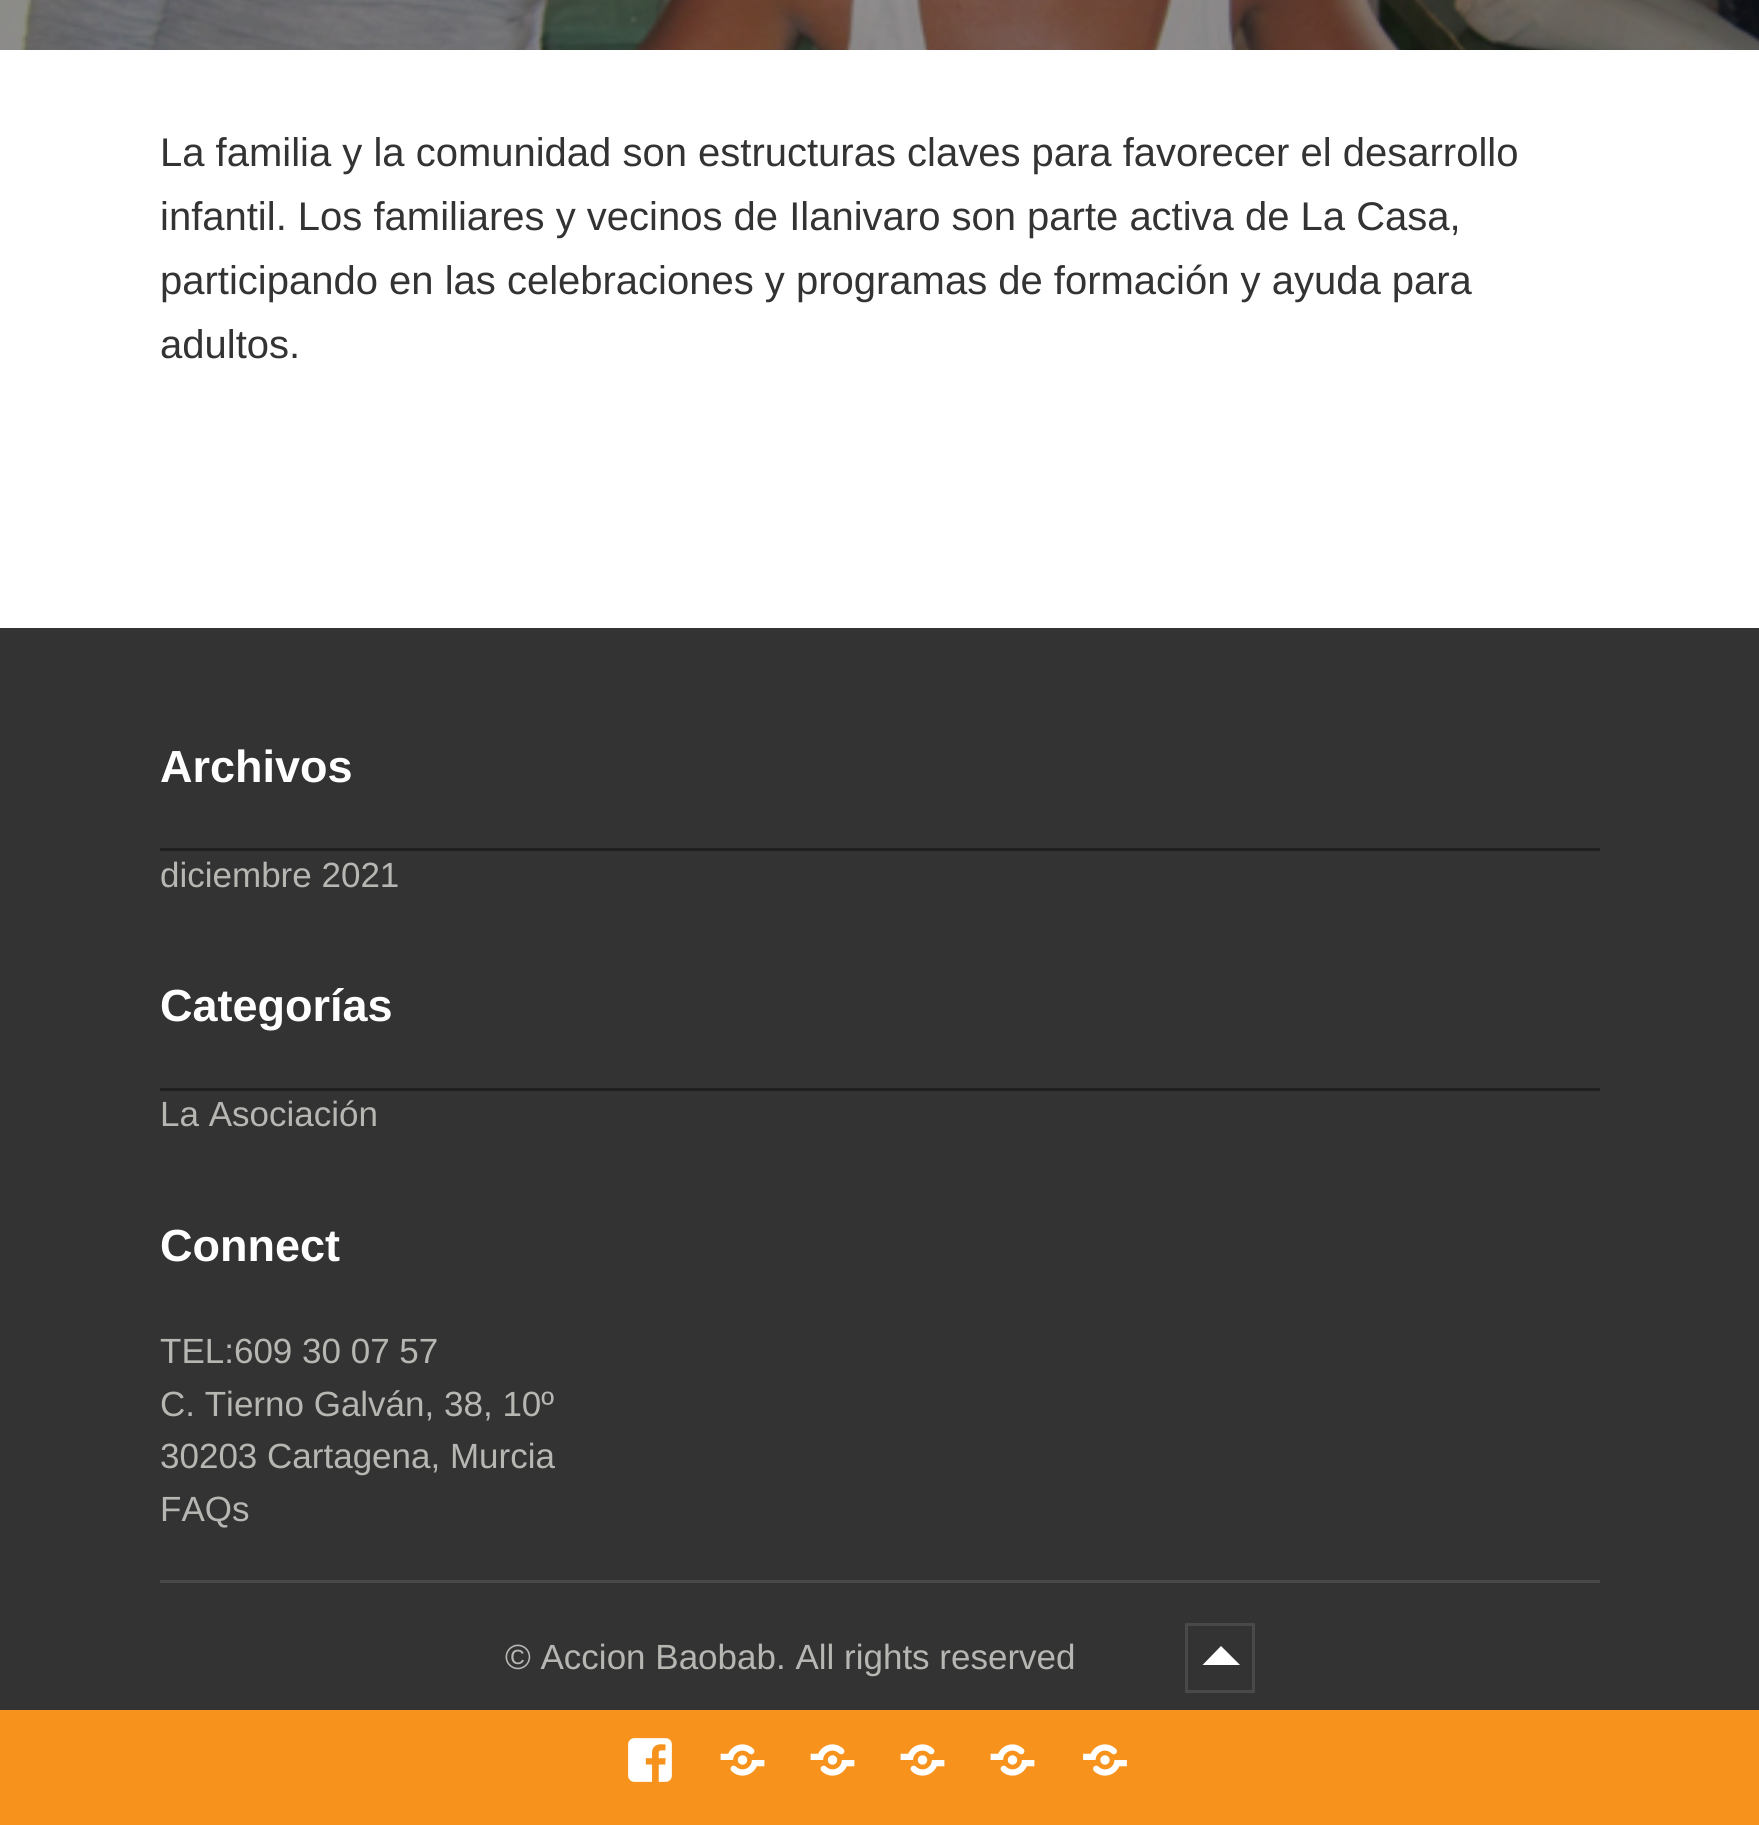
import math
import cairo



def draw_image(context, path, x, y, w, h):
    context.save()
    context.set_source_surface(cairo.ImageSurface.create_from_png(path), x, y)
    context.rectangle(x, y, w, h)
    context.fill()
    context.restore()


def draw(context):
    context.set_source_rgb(1, 1, 1)
    context.paint()
    draw_image(context, "images/1.png", 0, 0, 1759, 50)
    context.set_source_rgb(51 / 255, 51 / 255, 51 / 255)
    context.rectangle(0, 628, 1759, 1082)
    context.fill()
    context.set_source_rgb(32 / 255, 32 / 255, 32 / 255)
    context.rectangle(160, 848, 1440, 3)
    context.fill()
    context.rectangle(160, 1088, 1440, 3)
    context.fill()
    context.set_source_rgb(73 / 255, 73 / 255, 73 / 255)
    context.rectangle(160, 1580, 1440, 3)
    context.fill()
    context.rectangle(1186.5, 1624.5, 67, 67)
    context.set_line_width(3)
    context.stroke()
    context.set_source_rgb(1, 1, 1)
    context.new_path()
    context.move_to(1240, 1665)
    context.line_to(1202.5, 1665)
    context.line_to(1221, 1646)
    context.close_path()
    context.fill()
    context.set_source_rgb(247 / 255, 147 / 255, 29 / 255)
    context.rectangle(0, 1710, 1759, 115)
    context.fill()
    draw_image(context, "images/2.png", 628, 1738, 44, 44)
    draw_image(context, "images/3.png", 720, 1744, 45, 32)
    draw_image(context, "images/3.png", 810, 1744, 45, 32)
    draw_image(context, "images/3.png", 900, 1744, 45, 32)
    draw_image(context, "images/3.png", 990, 1744, 45, 32)
    draw_image(context, "images/4.png", 1083, 1744, 44, 32)
    context.select_font_face("Liberation Sans")
    context.set_font_size(40)
    context.set_source_rgb(51 / 255, 51 / 255, 51 / 255)
    context.move_to(160, 166)
    context.show_text("La familia y la comunidad son estructuras claves para favorecer el desarrollo")
    context.move_to(160, 230)
    context.show_text("infantil. Los familiares y vecinos de Ilanivaro son parte activa de La Casa,")
    context.move_to(160, 294)
    context.show_text("participando en las celebraciones y programas de formación y ayuda para")
    context.move_to(160, 358)
    context.show_text("adultos.")
    context.select_font_face("Liberation Sans", cairo.FontSlant.NORMAL, cairo.FontWeight.BOLD)
    context.set_font_size(45)
    context.set_source_rgb(1, 1, 1)
    context.move_to(160, 782)
    context.show_text("Archivos")
    context.select_font_face("Liberation Sans")
    context.set_font_size(35)
    context.set_source_rgb(182 / 255, 182 / 255, 179 / 255)
    context.move_to(160, 887)
    context.show_text("diciembre 2021")
    context.select_font_face("Liberation Sans", cairo.FontSlant.NORMAL, cairo.FontWeight.BOLD)
    context.set_font_size(45)
    context.set_source_rgb(1, 1, 1)
    context.move_to(160, 1021)
    context.show_text("Categorías")
    context.select_font_face("Liberation Sans")
    context.set_font_size(35)
    context.set_source_rgb(182 / 255, 182 / 255, 179 / 255)
    context.move_to(160, 1126)
    context.show_text("La Asociación")
    context.select_font_face("Liberation Sans", cairo.FontSlant.NORMAL, cairo.FontWeight.BOLD)
    context.set_font_size(45)
    context.set_source_rgb(1, 1, 1)
    context.move_to(160, 1261)
    context.show_text("Connect")
    context.select_font_face("Liberation Sans")
    context.set_font_size(35)
    context.set_source_rgb(182 / 255, 182 / 255, 179 / 255)
    context.move_to(160, 1363)
    context.show_text("TEL:609 30 07 57")
    context.move_to(160, 1416)
    context.show_text("C. Tierno Galván, 38, 10º")
    context.move_to(160, 1468)
    context.show_text("30203 Cartagena, Murcia")
    context.move_to(160, 1521)
    context.show_text("FAQs")
    context.move_to(505, 1669)
    context.show_text("© Accion Baobab. All rights reserved")


surface = cairo.ImageSurface(cairo.Format.RGB24, 1759, 1825)
context = cairo.Context(surface)
options = cairo.FontOptions()
options.set_hint_metrics(cairo.HintMetrics.OFF)
options.set_hint_style(cairo.HintStyle.NONE)
context.set_font_options(options)
context.set_miter_limit(4)
draw(context)
surface.write_to_png("out.png")
